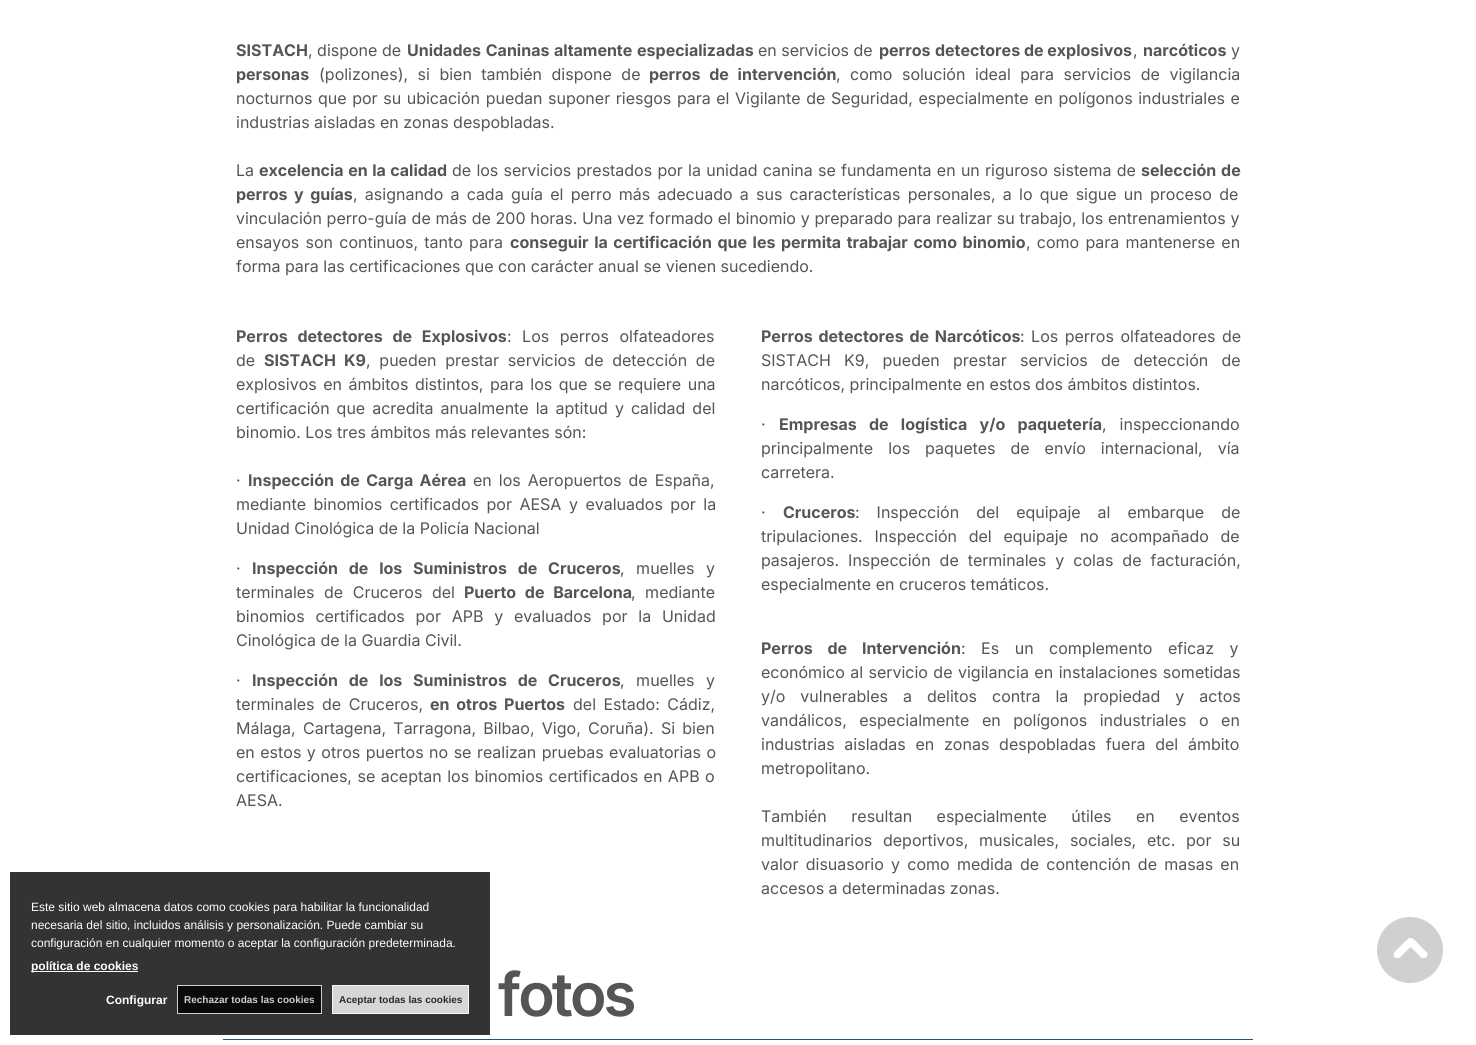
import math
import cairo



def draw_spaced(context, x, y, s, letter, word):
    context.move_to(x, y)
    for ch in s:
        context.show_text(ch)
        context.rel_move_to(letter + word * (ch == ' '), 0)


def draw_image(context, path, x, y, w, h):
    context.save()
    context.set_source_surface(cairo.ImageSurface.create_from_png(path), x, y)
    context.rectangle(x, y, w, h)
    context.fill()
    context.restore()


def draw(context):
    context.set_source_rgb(1, 1, 1)
    context.paint()
    context.set_source_rgb(44 / 255, 81 / 255, 126 / 255)
    context.rectangle(223, 1039, 1030, 1)
    context.fill()
    context.set_source_rgba(0, 0, 0, 0.8)
    context.rectangle(10, 872, 480, 163)
    context.fill()
    context.set_source_rgb(1, 1, 1)
    context.rectangle(31, 971, 107, 1)
    context.fill()
    context.set_source_rgba(0, 0, 0, 0.8)
    context.rectangle(177, 985, 145, 29)
    context.fill()
    context.rectangle(177.5, 985.5, 144, 28)
    context.set_source_rgba(1, 1, 1, 0.8)
    context.set_line_width(1)
    context.stroke()
    context.rectangle(332, 985, 137, 29)
    context.fill()
    context.rectangle(332.5, 985.5, 136, 28)
    context.stroke()
    draw_image(context, "images/1.png", 1377, 917, 66, 66)
    context.select_font_face("Inter", cairo.FontSlant.NORMAL, cairo.FontWeight.BOLD)
    context.set_font_size(16)
    context.set_source_rgb(85 / 255, 85 / 255, 85 / 255)
    context.move_to(236, 56)
    context.show_text("SISTACH")
    context.select_font_face("Inter")
    context.move_to(308, 56)
    context.show_text(", dispone de")
    context.select_font_face("Inter", cairo.FontSlant.NORMAL, cairo.FontWeight.BOLD)
    draw_spaced(context, 407, 56, "Unidades Caninas", 0, 1)
    draw_spaced(context, 554, 56, "altamente especializadas", 0, 1)
    context.select_font_face("Inter")
    context.move_to(758, 56)
    context.show_text("en servicios de")
    context.select_font_face("Inter", cairo.FontSlant.NORMAL, cairo.FontWeight.BOLD)
    context.move_to(879, 56)
    context.show_text("perros")
    context.move_to(935, 56)
    context.show_text("detectores de explosivos")
    context.select_font_face("Inter")
    context.move_to(1133, 56)
    context.show_text(",")
    context.select_font_face("Inter", cairo.FontSlant.NORMAL, cairo.FontWeight.BOLD)
    context.move_to(1143, 56)
    context.show_text("narcóticos")
    context.select_font_face("Inter")
    context.move_to(1231, 56)
    context.show_text("y")
    context.select_font_face("Inter", cairo.FontSlant.NORMAL, cairo.FontWeight.BOLD)
    context.move_to(236, 80)
    context.show_text("personas")
    context.select_font_face("Inter")
    draw_spaced(context, 319, 80, "(polizones), si bien también dispone de", 0, 5)
    context.select_font_face("Inter", cairo.FontSlant.NORMAL, cairo.FontWeight.BOLD)
    draw_spaced(context, 649, 80, "perros de intervención", 0, 5)
    context.select_font_face("Inter")
    draw_spaced(context, 836, 80, ", como solución ideal para servicios de vigilancia", 0, 5)
    draw_spaced(context, 236, 104, "nocturnos que por su ubicación puedan suponer riesgos para el Vigilante de Seguridad, especialmente en polígonos industriales e", 0, 1.1)
    context.move_to(236, 128)
    context.show_text("industrias aisladas en zonas despobladas.")
    context.move_to(236, 176)
    context.show_text("La")
    context.select_font_face("Inter", cairo.FontSlant.NORMAL, cairo.FontWeight.BOLD)
    draw_spaced(context, 259, 176, "excelencia en la calidad", 0, 0.75)
    context.select_font_face("Inter")
    draw_spaced(context, 452, 176, "de los servicios prestados por la unidad canina se fundamenta en un riguroso sistema de", 0, 0.75)
    context.select_font_face("Inter", cairo.FontSlant.NORMAL, cairo.FontWeight.BOLD)
    draw_spaced(context, 1141, 176, "selección de", 0, 1)
    draw_spaced(context, 236, 200, "perros y guías", 0, 2.75)
    context.select_font_face("Inter")
    draw_spaced(context, 353, 200, ", asignando a cada guía el perro más adecuado a sus características personales, a lo que sigue un proceso de", 0, 2.75)
    draw_spaced(context, 236, 224, "vinculación perro-guía de más de 200 horas. Una vez formado el binomio y preparado para realizar su trabajo, los entrenamientos y", 0, 0.25)
    draw_spaced(context, 236, 248, "ensayos son continuos, tanto para", 0, 1.75)
    context.select_font_face("Inter", cairo.FontSlant.NORMAL, cairo.FontWeight.BOLD)
    draw_spaced(context, 510, 248, "conseguir la certificación que les permita trabajar como binomio", 0, 1.75)
    context.select_font_face("Inter")
    draw_spaced(context, 1026, 248, ", como para mantenerse en", 0, 1.75)
    context.move_to(236, 272)
    context.show_text("forma para las certificaciones que con carácter anual se vienen sucediendo.")
    context.select_font_face("Inter", cairo.FontSlant.NORMAL, cairo.FontWeight.BOLD)
    draw_spaced(context, 236, 342, "Perros detectores de Explosivos", 0, 6)
    context.select_font_face("Inter")
    draw_spaced(context, 507, 342, ": Los perros olfateadores", 0, 6)
    context.move_to(236, 366)
    context.show_text("de")
    context.select_font_face("Inter", cairo.FontSlant.NORMAL, cairo.FontWeight.BOLD)
    draw_spaced(context, 264, 366, "SISTACH K9", 0, 4.25)
    context.select_font_face("Inter")
    draw_spaced(context, 366, 366, ", pueden prestar servicios de detección de", 0, 4.25)
    draw_spaced(context, 236, 390, "explosivos en ámbitos distintos, para los que se requiere una", 0, 2)
    draw_spaced(context, 236, 414, "certificación que acredita anualmente la aptitud y calidad del", 0, 2.5)
    context.move_to(236, 438)
    context.show_text("binomio. Los tres ámbitos más relevantes són:")
    context.move_to(236, 486)
    context.show_text("·")
    context.select_font_face("Inter", cairo.FontSlant.NORMAL, cairo.FontWeight.BOLD)
    draw_spaced(context, 248, 486, "Inspección de Carga Aérea", 0, 2.5)
    context.select_font_face("Inter")
    draw_spaced(context, 473, 486, "en los Aeropuertos de España,", 0, 2.5)
    draw_spaced(context, 236, 510, "mediante binomios certificados por AESA y evaluados por la", 0, 3)
    context.move_to(236, 534)
    context.show_text("Unidad Cinológica de la Policía Nacional")
    context.move_to(236, 574)
    context.show_text("·")
    context.select_font_face("Inter", cairo.FontSlant.NORMAL, cairo.FontWeight.BOLD)
    draw_spaced(context, 252, 574, "Inspección de los Suministros de Cruceros", 0, 7)
    context.select_font_face("Inter")
    draw_spaced(context, 620, 574, ", muelles y", 0, 7)
    draw_spaced(context, 236, 598, "terminales de Cruceros del", 0, 5)
    context.select_font_face("Inter", cairo.FontSlant.NORMAL, cairo.FontWeight.BOLD)
    draw_spaced(context, 464, 598, "Puerto de Barcelona", 0, 5)
    context.select_font_face("Inter")
    draw_spaced(context, 631, 598, ", mediante", 0, 5)
    draw_spaced(context, 236, 622, "binomios certificados por APB y evaluados por la Unidad", 0, 6.25)
    context.move_to(236, 646)
    context.show_text("Cinológica de la Guardia Civil.")
    context.move_to(236, 686)
    context.show_text("·")
    context.select_font_face("Inter", cairo.FontSlant.NORMAL, cairo.FontWeight.BOLD)
    draw_spaced(context, 252, 686, "Inspección de los Suministros de Cruceros", 0, 7)
    context.select_font_face("Inter")
    draw_spaced(context, 620, 686, ", muelles y", 0, 7)
    draw_spaced(context, 236, 710, "terminales de Cruceros,", 0, 3)
    context.select_font_face("Inter", cairo.FontSlant.NORMAL, cairo.FontWeight.BOLD)
    draw_spaced(context, 430, 710, "en otros Puertos", 0, 3)
    context.select_font_face("Inter")
    draw_spaced(context, 573, 710, "del Estado: Cádiz,", 0, 3)
    draw_spaced(context, 236, 734, "Málaga, Cartagena, Tarragona, Bilbao, Vigo, Coruña). Si bien", 0, 2.75)
    draw_spaced(context, 236, 758, "en estos y otros puertos no se realizan pruebas evaluatorias o", 0, 1)
    draw_spaced(context, 236, 782, "certificaciones, se aceptan los binomios certificados en APB o", 0, 1)
    context.move_to(236, 806)
    context.show_text("AESA.")
    context.select_font_face("Inter", cairo.FontSlant.NORMAL, cairo.FontWeight.BOLD)
    draw_spaced(context, 761, 342, "Perros detectores de Narcóticos", 0, 2)
    context.select_font_face("Inter")
    draw_spaced(context, 1020, 342, ": Los perros olfateadores de", 0, 2)
    draw_spaced(context, 761, 366, "SISTACH K9, pueden prestar servicios de detección de", 0, 8.75)
    context.move_to(761, 390)
    context.show_text("narcóticos, principalmente en estos dos ámbitos distintos.")
    context.move_to(761, 430)
    context.show_text("·")
    context.select_font_face("Inter", cairo.FontSlant.NORMAL, cairo.FontWeight.BOLD)
    draw_spaced(context, 779, 430, "Empresas de logística y/o paquetería", 0, 8.5)
    context.select_font_face("Inter")
    draw_spaced(context, 1102, 430, ", inspeccionando", 0, 8.5)
    draw_spaced(context, 761, 454, "principalmente los paquetes de envío internacional, vía", 0, 10.5)
    context.move_to(761, 478)
    context.show_text("carretera.")
    context.move_to(761, 518)
    context.show_text("·")
    context.select_font_face("Inter", cairo.FontSlant.NORMAL, cairo.FontWeight.BOLD)
    context.move_to(783, 518)
    context.show_text("Cruceros")
    context.select_font_face("Inter")
    draw_spaced(context, 855, 518, ": Inspección del equipaje al embarque de", 0, 12.5)
    draw_spaced(context, 761, 542, "tripulaciones. Inspección del equipaje no acompañado de", 0, 7.25)
    draw_spaced(context, 761, 566, "pasajeros. Inspección de terminales y colas de facturación,", 0, 4.5)
    context.move_to(761, 590)
    context.show_text("especialmente en cruceros temáticos.")
    context.select_font_face("Inter", cairo.FontSlant.NORMAL, cairo.FontWeight.BOLD)
    draw_spaced(context, 761, 654, "Perros de Intervención", 0, 11)
    context.select_font_face("Inter")
    draw_spaced(context, 961, 654, ": Es un complemento eficaz y", 0, 11)
    draw_spaced(context, 761, 678, "económico al servicio de vigilancia en instalaciones sometidas", 0, 1)
    draw_spaced(context, 761, 702, "y/o vulnerables a delitos contra la propiedad y actos", 0, 10.5)
    draw_spaced(context, 761, 726, "vandálicos, especialmente en polígonos industriales o en", 0, 8)
    draw_spaced(context, 761, 750, "industrias aisladas en zonas despobladas fuera del ámbito", 0, 5.25)
    context.move_to(761, 774)
    context.show_text("metropolitano.")
    draw_spaced(context, 761, 822, "También resultan especialmente útiles en eventos", 0, 20)
    draw_spaced(context, 761, 846, "multitudinarios deportivos, musicales, sociales, etc. por su", 0, 6.25)
    draw_spaced(context, 761, 870, "valor disuasorio y como medida de contención de masas en", 0, 2.75)
    context.move_to(761, 894)
    context.show_text("accesos a determinadas zonas.")
    context.select_font_face("Inter SemiBold")
    context.set_font_size(60)
    draw_spaced(context, 498, 1016, "fotos", -3, 0)
    context.select_font_face("Liberation Sans")
    context.set_font_size(12)
    context.set_source_rgb(1, 1, 1)
    context.move_to(31, 911)
    context.show_text("Este sitio web almacena datos como cookies para habilitar la funcionalidad")
    context.move_to(31, 929)
    context.show_text("necesaria del sitio, incluidos análisis y personalización. Puede cambiar su")
    context.move_to(31, 947)
    context.show_text("configuración en cualquier momento o aceptar la configuración predeterminada.")
    context.select_font_face("Liberation Sans", cairo.FontSlant.NORMAL, cairo.FontWeight.BOLD)
    context.move_to(31, 970)
    context.show_text("política de cookies")
    context.move_to(106, 1004)
    context.show_text("Configurar")
    context.set_font_size(10)
    context.set_source_rgb(206 / 255, 206 / 255, 206 / 255)
    context.move_to(184, 1003)
    context.show_text("Rechazar todas las cookies")
    context.set_source_rgb(42 / 255, 42 / 255, 42 / 255)
    context.move_to(339, 1003)
    context.show_text("Aceptar todas las cookies")


surface = cairo.ImageSurface(cairo.Format.RGB24, 1476, 1045)
context = cairo.Context(surface)
options = cairo.FontOptions()
options.set_hint_metrics(cairo.HintMetrics.OFF)
options.set_hint_style(cairo.HintStyle.NONE)
context.set_font_options(options)
context.set_miter_limit(4)
draw(context)
surface.write_to_png("out.png")
